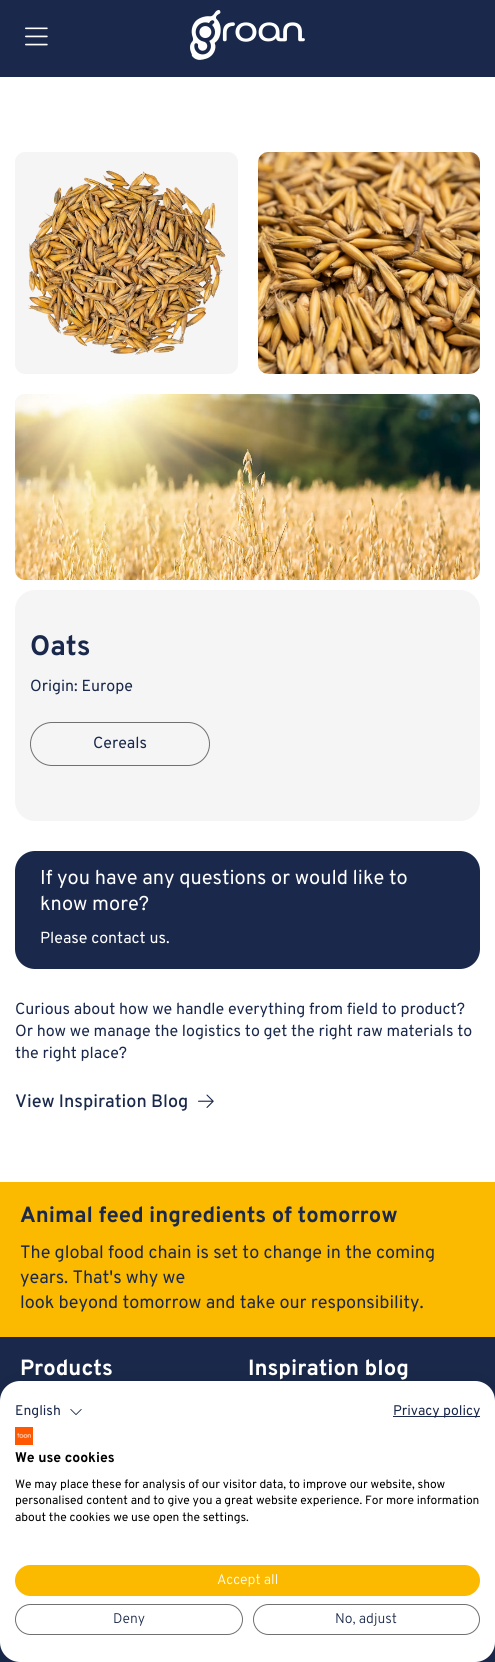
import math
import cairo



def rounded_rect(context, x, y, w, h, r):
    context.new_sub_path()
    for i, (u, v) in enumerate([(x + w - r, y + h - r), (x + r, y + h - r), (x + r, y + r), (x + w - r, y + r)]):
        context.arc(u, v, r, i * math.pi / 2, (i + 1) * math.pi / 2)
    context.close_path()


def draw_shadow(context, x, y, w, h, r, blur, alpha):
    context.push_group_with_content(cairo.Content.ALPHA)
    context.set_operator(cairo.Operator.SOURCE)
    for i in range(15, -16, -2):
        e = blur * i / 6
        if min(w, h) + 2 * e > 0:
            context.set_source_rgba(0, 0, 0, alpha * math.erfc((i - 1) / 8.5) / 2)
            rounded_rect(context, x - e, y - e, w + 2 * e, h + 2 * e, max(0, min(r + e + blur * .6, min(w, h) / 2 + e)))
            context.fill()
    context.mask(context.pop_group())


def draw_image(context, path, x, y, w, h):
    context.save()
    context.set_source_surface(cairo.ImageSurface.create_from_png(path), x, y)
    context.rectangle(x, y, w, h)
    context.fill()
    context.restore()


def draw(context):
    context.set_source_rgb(1, 1, 1)
    context.paint()
    context.set_source_rgb(26 / 255, 41 / 255, 75 / 255)
    context.rectangle(0, 0, 495, 77)
    context.fill()
    draw_image(context, "images/1.png", 25, 27, 23, 19)
    draw_image(context, "images/2.png", 190, 10, 115, 50)
    context.set_source_rgb(245 / 255, 245 / 255, 245 / 255)
    rounded_rect(context, 15, 152, 223, 222, 10)
    context.fill()
    draw_image(context, "images/3.png", 28, 170, 198, 185)
    rounded_rect(context, 258, 152, 222, 222, 10)
    context.fill()
    draw_image(context, "images/4.png", 258, 152, 222, 222)
    rounded_rect(context, 15, 394, 465, 186, 10)
    context.fill()
    draw_image(context, "images/5.png", 15, 394, 465, 186)
    rounded_rect(context, 15, 590, 465, 231, 20)
    context.fill()
    rounded_rect(context, 30.5, 722.5, 179, 43, 21.5)
    context.set_source_rgb(112 / 255, 112 / 255, 112 / 255)
    context.set_line_width(1)
    context.stroke()
    context.set_source_rgb(26 / 255, 41 / 255, 75 / 255)
    rounded_rect(context, 15, 851, 465, 118, 20)
    context.fill()
    draw_image(context, "images/6.png", 198, 1094, 16, 14)
    context.set_source_rgb(251 / 255, 185 / 255, 0)
    context.rectangle(0, 1182, 495, 155)
    context.fill()
    context.set_source_rgb(26 / 255, 41 / 255, 75 / 255)
    context.rectangle(0, 1337, 495, 325)
    context.fill()
    context.set_source_rgb(0, 0, 0)
    draw_shadow(context, 0, 1381, 495, 281, 20, 12, 0.1)
    context.set_source_rgb(1, 1, 1)
    rounded_rect(context, 0, 1381, 495, 281, 20)
    context.fill()
    draw_image(context, "images/7.png", 70, 1409, 12, 6)
    context.set_source_rgb(26 / 255, 41 / 255, 75 / 255)
    context.rectangle(393, 1416, 87, 1)
    context.fill()
    draw_image(context, "images/8.png", 15, 1427, 18, 18)
    context.set_source_rgb(251 / 255, 185 / 255, 0)
    rounded_rect(context, 15, 1565, 465, 31, 15.5)
    context.fill()
    rounded_rect(context, 15.5, 1604.5, 227, 30, 15)
    context.set_source_rgb(112 / 255, 112 / 255, 112 / 255)
    context.stroke()
    rounded_rect(context, 253.5, 1604.5, 226, 30, 15)
    context.stroke()
    context.select_font_face("Overpass", cairo.FontSlant.NORMAL, cairo.FontWeight.BOLD)
    context.set_font_size(28)
    context.set_source_rgb(26 / 255, 41 / 255, 75 / 255)
    context.move_to(30, 655)
    context.show_text("Oats")
    context.select_font_face("Overpass")
    context.set_font_size(16)
    context.move_to(30, 691)
    context.show_text("Origin: Europe")
    context.move_to(93, 748)
    context.show_text("Cereals")
    context.set_font_size(20)
    context.set_source_rgb(1, 1, 1)
    context.move_to(40, 884)
    context.show_text("If you have any questions or would like to")
    context.move_to(40, 910)
    context.show_text("know more?")
    context.set_font_size(16)
    context.move_to(40, 943)
    context.show_text("Please contact us.")
    context.set_source_rgb(26 / 255, 41 / 255, 75 / 255)
    context.move_to(15, 1014)
    context.show_text("Curious about how we handle everything from field to product?")
    context.move_to(15, 1036)
    context.show_text("Or how we manage the logistics to get the right raw materials to")
    context.move_to(15, 1058)
    context.show_text("the right place?")
    context.select_font_face("Overpass Medium")
    context.set_font_size(18)
    context.move_to(15, 1107)
    context.show_text("View Inspiration Blog")
    context.select_font_face("Overpass", cairo.FontSlant.NORMAL, cairo.FontWeight.BOLD)
    context.set_font_size(22)
    context.move_to(20, 1222)
    context.show_text("Animal feed ingredients of tomorrow")
    context.select_font_face("Overpass")
    context.set_font_size(18)
    context.move_to(20, 1258)
    context.show_text("The global food chain is set to change in the coming")
    context.move_to(20, 1283)
    context.show_text("years. That's why we")
    context.move_to(20, 1308)
    context.show_text("look beyond tomorrow and take our responsibility.")
    context.select_font_face("Overpass", cairo.FontSlant.NORMAL, cairo.FontWeight.BOLD)
    context.set_font_size(22)
    context.set_source_rgb(1, 1, 1)
    context.move_to(20, 1375)
    context.show_text("Products")
    context.move_to(248, 1375)
    context.show_text("Inspiration blog")
    context.select_font_face("Overpass")
    context.set_font_size(14)
    context.set_source_rgb(26 / 255, 41 / 255, 75 / 255)
    context.move_to(15, 1415)
    context.show_text("English")
    context.move_to(393, 1415)
    context.show_text("Privacy policy")
    context.select_font_face("Overpass", cairo.FontSlant.NORMAL, cairo.FontWeight.BOLD)
    context.set_source_rgb(0, 0, 0)
    context.move_to(15, 1462)
    context.show_text("We use cookies")
    context.select_font_face("Overpass")
    context.set_font_size(12)
    context.move_to(15, 1488)
    context.show_text("We may place these for analysis of our visitor data, to improve our website, show")
    context.move_to(15, 1504)
    context.show_text("personalised content and to give you a great website experience. For more information")
    context.move_to(15, 1521)
    context.show_text("about the cookies we use open the settings.")
    context.select_font_face("Overpass Light")
    context.set_font_size(14)
    context.set_source_rgb(1, 1, 1)
    context.move_to(217, 1584)
    context.show_text("Accept all")
    context.set_source_rgb(26 / 255, 41 / 255, 75 / 255)
    context.move_to(113, 1623)
    context.show_text("Deny")
    context.move_to(335, 1623)
    context.show_text("No, adjust")


surface = cairo.ImageSurface(cairo.Format.RGB24, 495, 1662)
context = cairo.Context(surface)
options = cairo.FontOptions()
options.set_hint_metrics(cairo.HintMetrics.OFF)
options.set_hint_style(cairo.HintStyle.NONE)
context.set_font_options(options)
context.set_miter_limit(4)
draw(context)
surface.write_to_png("out.png")
